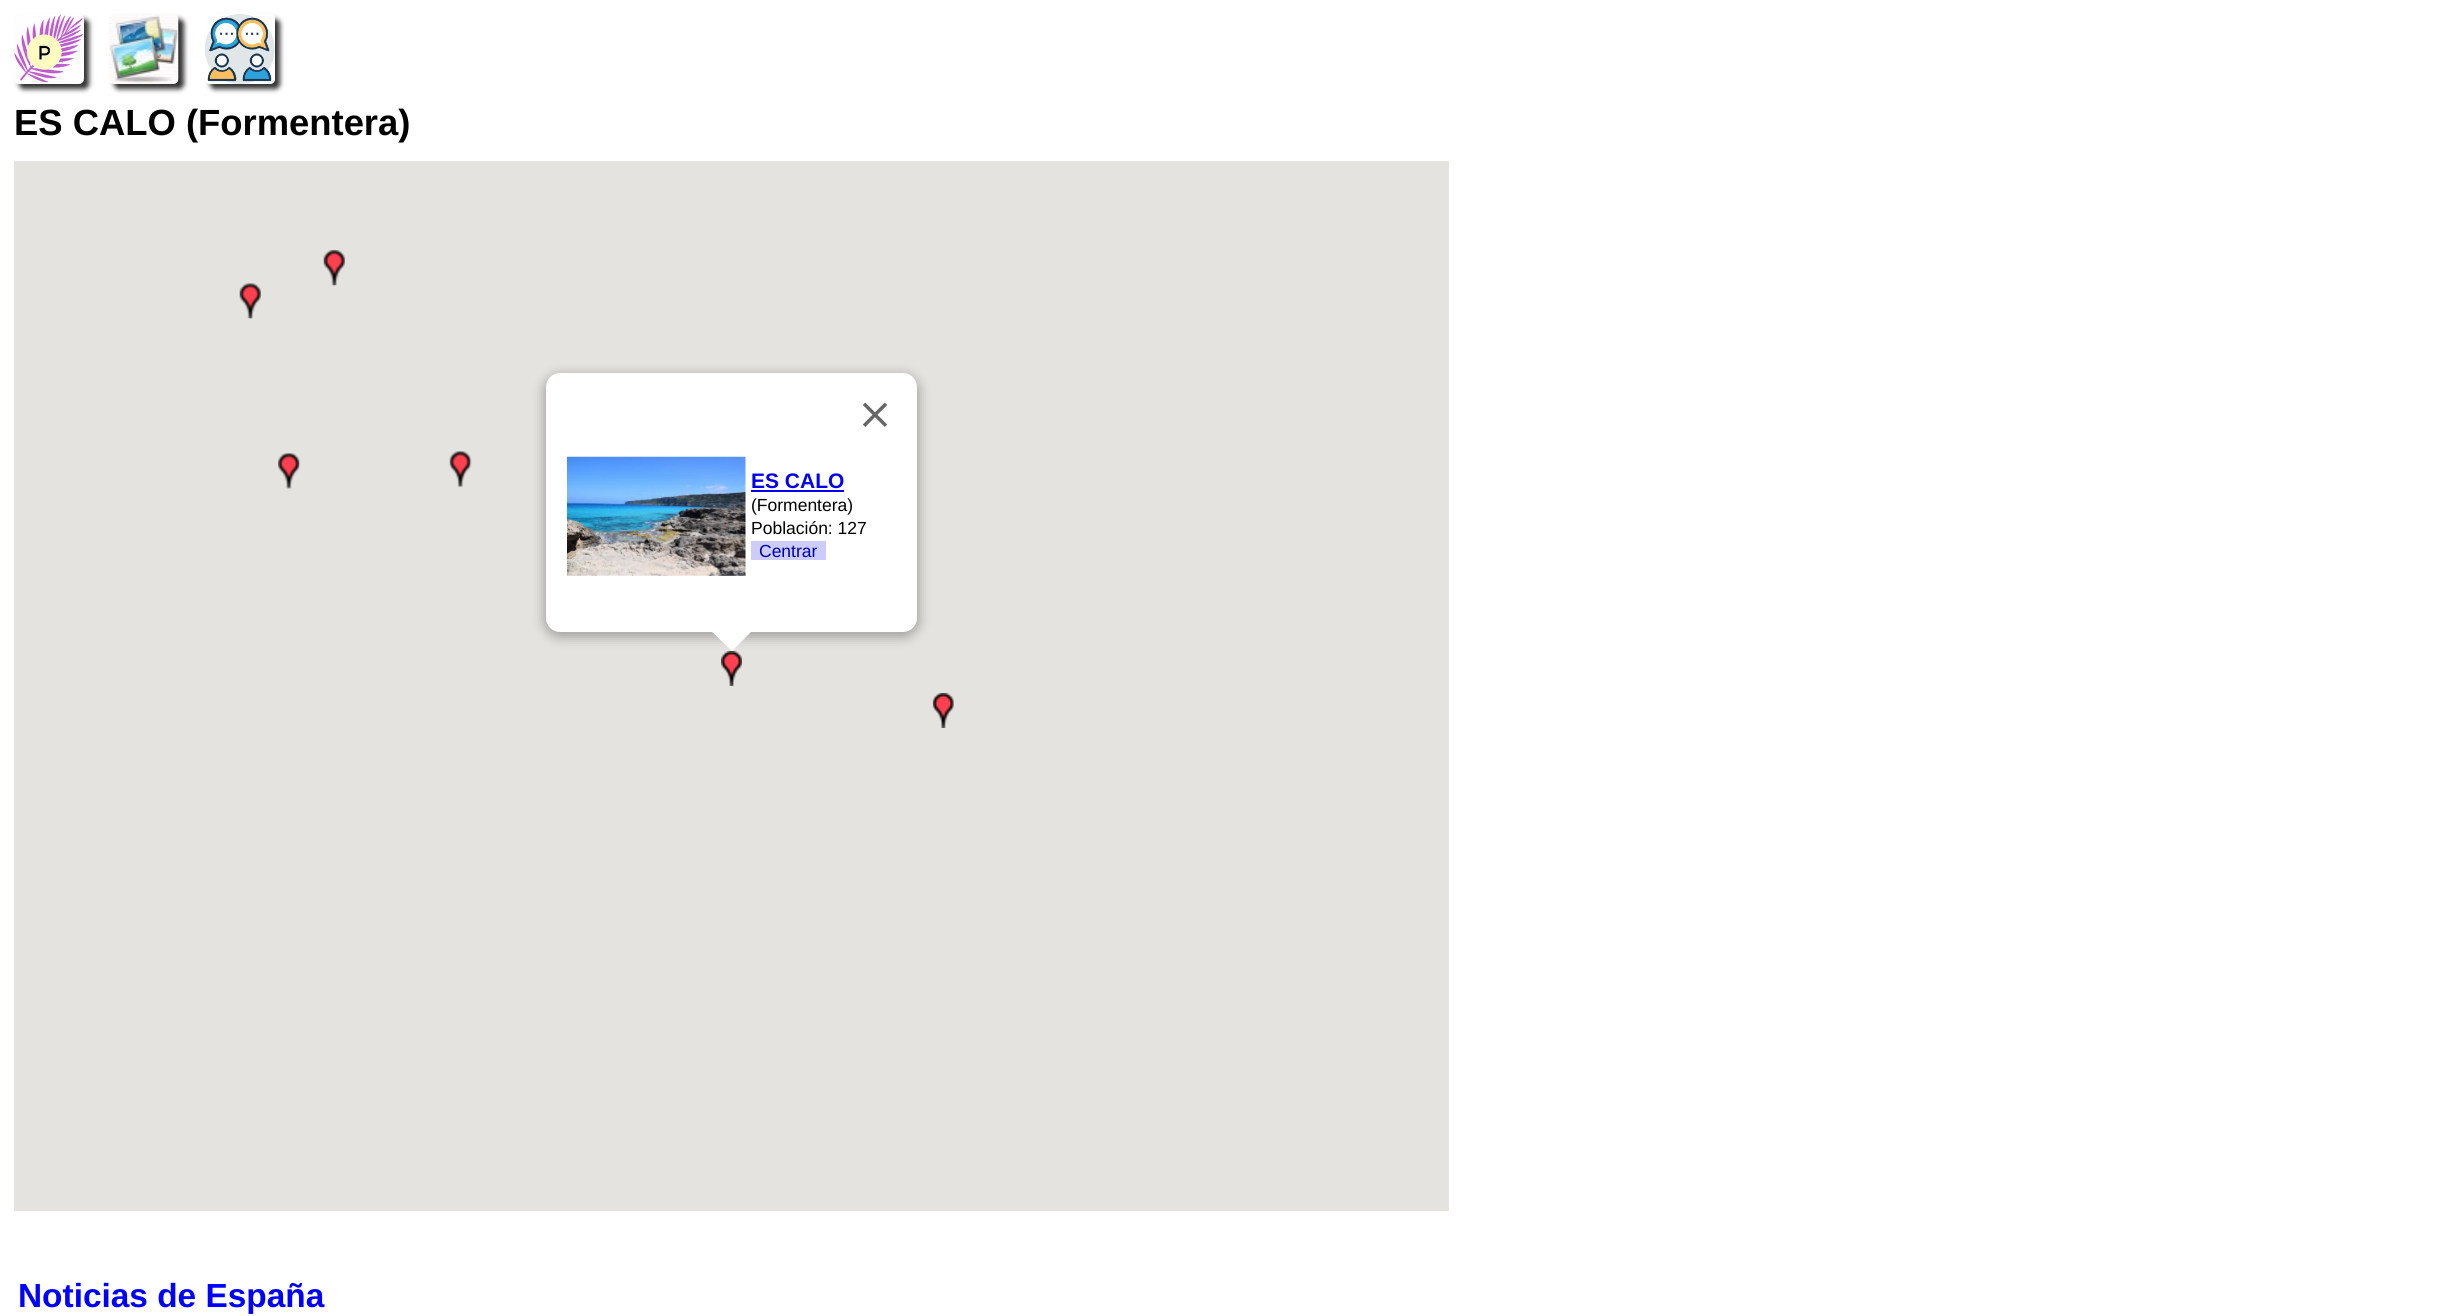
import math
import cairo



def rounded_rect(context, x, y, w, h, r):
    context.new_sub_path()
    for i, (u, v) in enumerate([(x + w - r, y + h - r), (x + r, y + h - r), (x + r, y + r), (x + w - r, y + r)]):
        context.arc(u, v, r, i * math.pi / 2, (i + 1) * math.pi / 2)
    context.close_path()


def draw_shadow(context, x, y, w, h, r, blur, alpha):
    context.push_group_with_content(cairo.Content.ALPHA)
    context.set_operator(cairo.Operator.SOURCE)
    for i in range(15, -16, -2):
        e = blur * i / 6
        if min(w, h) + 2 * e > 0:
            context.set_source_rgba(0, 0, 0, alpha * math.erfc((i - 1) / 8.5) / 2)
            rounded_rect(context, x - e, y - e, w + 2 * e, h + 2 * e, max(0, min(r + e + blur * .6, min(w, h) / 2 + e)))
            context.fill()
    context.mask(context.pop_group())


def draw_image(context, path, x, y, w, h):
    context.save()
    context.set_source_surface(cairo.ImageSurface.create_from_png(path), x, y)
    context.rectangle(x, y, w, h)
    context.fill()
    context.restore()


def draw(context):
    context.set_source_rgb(1, 1, 1)
    context.paint()
    context.set_source_rgb(51 / 255, 51 / 255, 51 / 255)
    draw_shadow(context, 19, 19, 70, 70, 5, 2.5, 1)
    draw_shadow(context, 114, 19, 70, 70, 5, 2.5, 1)
    context.save()
    context.set_fill_rule(cairo.FillRule.EVEN_ODD)
    context.new_path()
    context.move_to(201, 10)
    context.line_to(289, 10)
    context.line_to(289, 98)
    context.line_to(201, 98)
    context.close_path()
    context.move_to(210, 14)
    context.line_to(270, 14)
    context.curve_to(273, 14, 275, 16, 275, 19)
    context.line_to(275, 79)
    context.curve_to(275, 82, 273, 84, 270, 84)
    context.line_to(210, 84)
    context.curve_to(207, 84, 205, 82, 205, 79)
    context.line_to(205, 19)
    context.curve_to(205, 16, 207, 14, 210, 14)
    context.close_path()
    context.clip()
    draw_shadow(context, 210, 19, 70, 70, 5, 2.5, 1)
    context.restore()
    draw_image(context, "images/1.png", 14, 14, 70, 70)
    draw_image(context, "images/2.png", 109, 14, 70, 70)
    draw_image(context, "images/3.png", 205, 14, 70, 70)
    context.set_source_rgb(229 / 255, 227 / 255, 223 / 255)
    context.rectangle(14, 161, 1435, 1050)
    context.fill()
    draw_image(context, "images/4.png", 323, 250, 22, 36)
    draw_image(context, "images/5.png", 239, 283, 22, 36)
    draw_image(context, "images/6.png", 278, 453, 22, 36)
    draw_image(context, "images/7.png", 449, 451, 23, 36)
    draw_image(context, "images/8.png", 721, 651, 21, 35)
    draw_image(context, "images/9.png", 932, 693, 22, 35)
    context.set_source_rgb(0, 0, 0)
    draw_shadow(context, 544, 375, 375, 262, 16, 6, 0.3)
    context.set_source_rgb(1, 1, 1)
    rounded_rect(context, 546, 373, 371, 259, 14)
    context.fill()
    draw_image(context, "images/10.png", 862, 402, 26, 25)
    draw_image(context, "images/11.png", 567, 456, 179, 120)
    context.set_source_rgb(0, 0, 238 / 255)
    context.rectangle(751, 490, 93, 2)
    context.fill()
    context.set_source_rgb(204 / 255, 204 / 255, 1)
    context.rectangle(751, 541, 75, 19)
    context.fill()
    context.set_source_rgb(1, 1, 1)
    context.new_path()
    context.move_to(711, 630)
    context.line_to(711, 631)
    context.line_to(732, 651)
    context.line_to(753, 630)
    context.close_path()
    context.fill()
    context.select_font_face("Liberation Sans", cairo.FontSlant.NORMAL, cairo.FontWeight.BOLD)
    context.set_font_size(36.4)
    context.set_source_rgb(0, 0, 0)
    context.move_to(14, 135)
    context.show_text("ES CALO (Formentera)")
    context.set_font_size(21)
    context.set_source_rgb(0, 0, 238 / 255)
    context.move_to(751, 488)
    context.show_text("ES CALO")
    context.select_font_face("Liberation Sans")
    context.set_font_size(17.5)
    context.set_source_rgb(0, 0, 0)
    context.move_to(751, 511)
    context.show_text("(Formentera)")
    context.move_to(751, 534)
    context.show_text("Población: 127")
    context.set_source_rgb(0, 0, 170 / 255)
    context.move_to(759, 557)
    context.show_text("Centrar")
    context.select_font_face("Liberation Sans", cairo.FontSlant.NORMAL, cairo.FontWeight.BOLD)
    context.set_font_size(33.4)
    context.set_source_rgb(0, 0, 1)
    context.move_to(18, 1307)
    context.show_text("Noticias de España")


surface = cairo.ImageSurface(cairo.Format.RGB24, 2452, 1316)
context = cairo.Context(surface)
options = cairo.FontOptions()
options.set_hint_metrics(cairo.HintMetrics.OFF)
options.set_hint_style(cairo.HintStyle.NONE)
context.set_font_options(options)
context.set_miter_limit(4)
draw(context)
surface.write_to_png("out.png")
